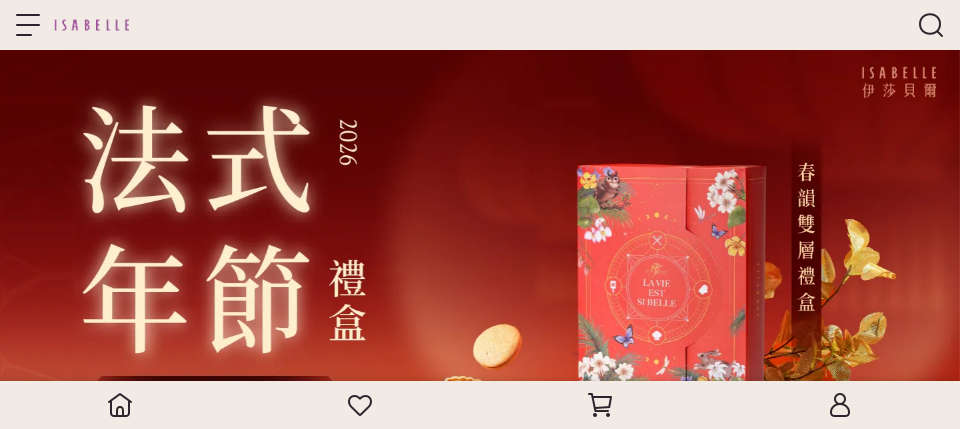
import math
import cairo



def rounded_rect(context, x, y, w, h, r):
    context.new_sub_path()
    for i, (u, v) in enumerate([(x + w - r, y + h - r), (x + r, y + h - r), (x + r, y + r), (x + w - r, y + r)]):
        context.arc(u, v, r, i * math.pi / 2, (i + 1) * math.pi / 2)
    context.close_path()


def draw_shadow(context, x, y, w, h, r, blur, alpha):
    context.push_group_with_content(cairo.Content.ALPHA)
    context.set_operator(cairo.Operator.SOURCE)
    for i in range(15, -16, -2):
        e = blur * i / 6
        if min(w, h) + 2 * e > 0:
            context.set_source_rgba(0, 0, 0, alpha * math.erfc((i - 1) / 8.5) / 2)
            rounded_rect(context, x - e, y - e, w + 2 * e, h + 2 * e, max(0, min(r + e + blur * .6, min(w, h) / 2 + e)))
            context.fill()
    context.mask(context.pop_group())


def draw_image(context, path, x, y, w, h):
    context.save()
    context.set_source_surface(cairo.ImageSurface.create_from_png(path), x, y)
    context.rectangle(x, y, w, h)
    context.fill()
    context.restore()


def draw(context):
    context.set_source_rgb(1, 1, 1)
    context.paint()
    context.set_source_rgb(242 / 255, 235 / 255, 229 / 255)
    context.rectangle(0, 0, 960, 50)
    context.fill()
    draw_image(context, "images/1.png", 16, 14, 24, 22)
    draw_image(context, "images/2.png", 54, 19, 75, 12)
    context.new_path()
    context.move_to(940, 24)
    context.curve_to(940, 37, 920, 37, 920, 24)
    context.curve_to(920, 11, 940, 11, 940, 24)
    context.close_path()
    context.move_to(938, 32)
    context.line_to(942, 36)
    context.set_source_rgb(43 / 255, 38 / 255, 45 / 255)
    context.set_line_cap(cairo.LineCap.ROUND)
    context.set_line_join(cairo.LineJoin.ROUND)
    context.stroke()
    draw_image(context, "images/7.png", 0, 50, 960, 331)
    context.set_source_rgb(0, 0, 0)
    draw_shadow(context, 0, 381, 960, 48, 0, 5, 0.2)
    context.set_source_rgb(242 / 255, 235 / 255, 229 / 255)
    context.rectangle(0, 381, 960, 48)
    context.fill()
    draw_image(context, "images/3.png", 108, 393, 24, 24)
    draw_image(context, "images/4.png", 348, 395, 24, 21)
    draw_image(context, "images/5.png", 588, 393, 24, 24)
    draw_image(context, "images/6.png", 830, 393, 20, 24)


surface = cairo.ImageSurface(cairo.Format.RGB24, 960, 429)
context = cairo.Context(surface)
options = cairo.FontOptions()
options.set_hint_metrics(cairo.HintMetrics.OFF)
options.set_hint_style(cairo.HintStyle.NONE)
context.set_font_options(options)
context.set_miter_limit(4)
draw(context)
surface.write_to_png("out.png")
